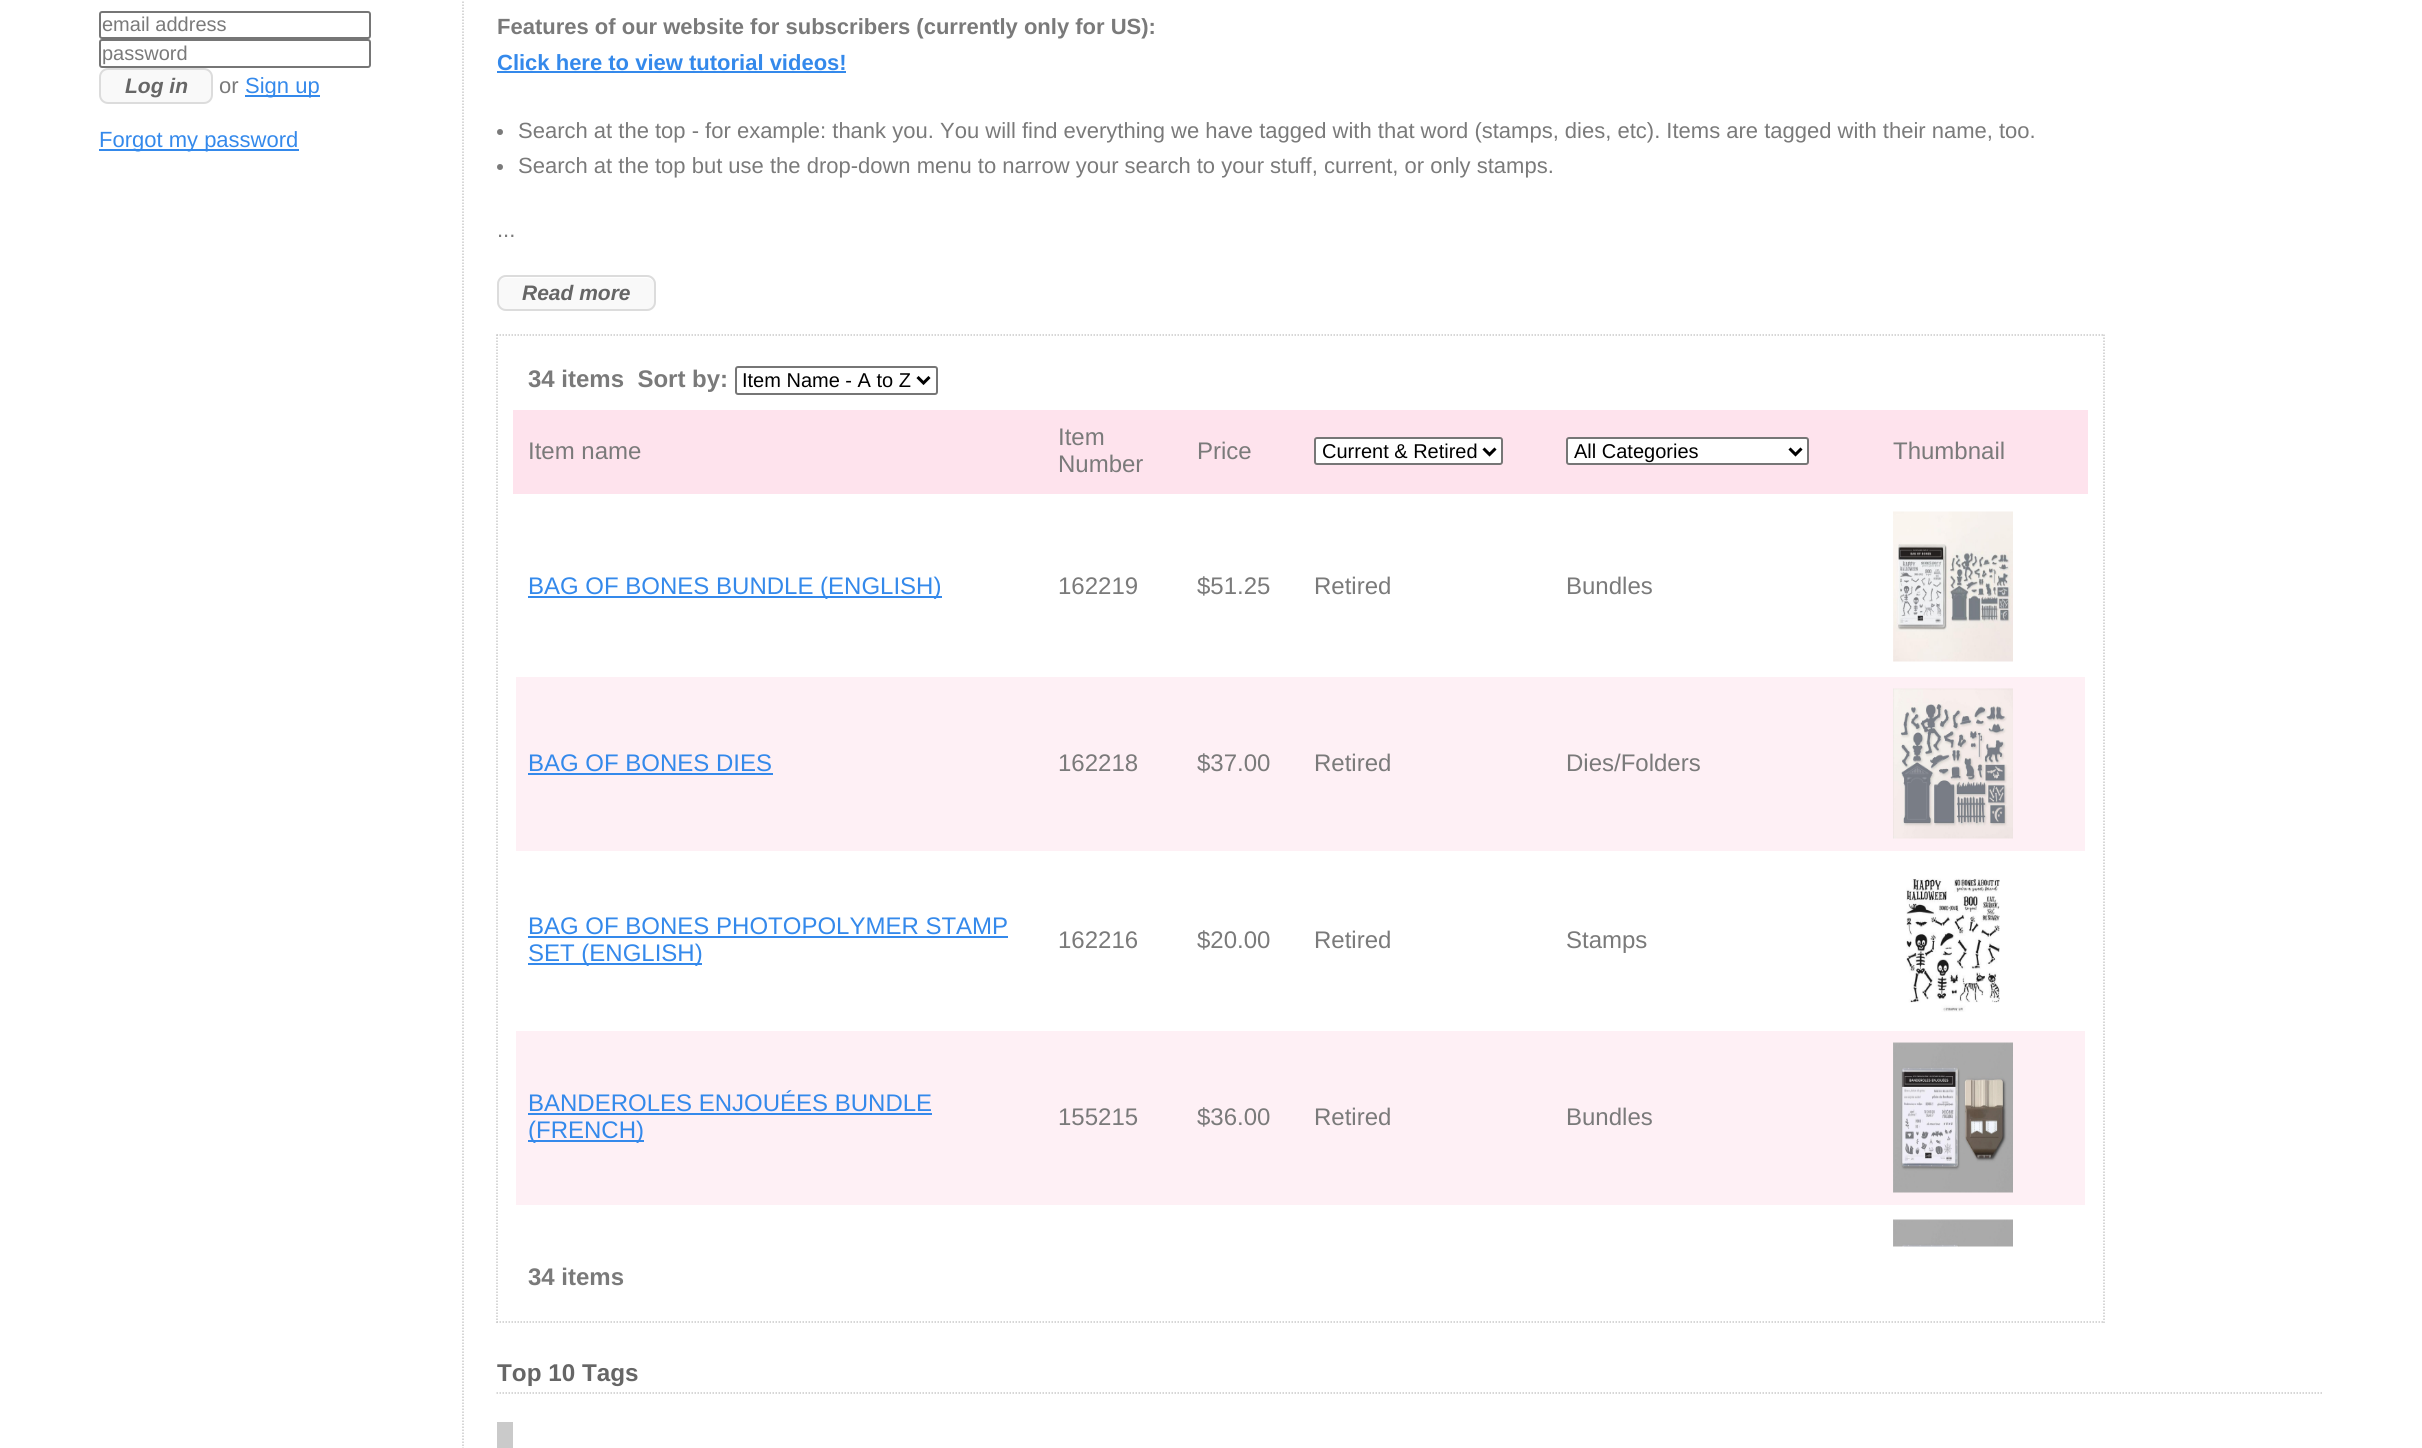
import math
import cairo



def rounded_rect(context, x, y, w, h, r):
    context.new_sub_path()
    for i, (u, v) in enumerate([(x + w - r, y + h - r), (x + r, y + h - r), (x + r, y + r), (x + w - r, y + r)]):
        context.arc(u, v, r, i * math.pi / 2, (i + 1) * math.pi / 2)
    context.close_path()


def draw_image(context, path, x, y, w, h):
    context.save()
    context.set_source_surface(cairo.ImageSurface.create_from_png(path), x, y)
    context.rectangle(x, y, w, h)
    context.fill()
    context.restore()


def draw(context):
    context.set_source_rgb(1, 1, 1)
    context.paint()
    rounded_rect(context, 100, 12, 270, 26, 2)
    context.set_source_rgb(118 / 255, 118 / 255, 118 / 255)
    context.stroke()
    rounded_rect(context, 100, 40, 270, 27, 2)
    context.stroke()
    context.set_source_rgb(249 / 255, 249 / 255, 249 / 255)
    rounded_rect(context, 100, 69, 112, 34, 8)
    context.fill_preserve()
    context.set_source_rgb(220 / 255, 220 / 255, 220 / 255)
    context.stroke()
    context.set_source_rgb(52 / 255, 137 / 255, 235 / 255)
    context.rectangle(245, 95, 75, 2)
    context.fill()
    context.rectangle(99, 149, 200, 2)
    context.fill()
    context.new_path()
    context.move_to(463, -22.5)
    context.line_to(463, 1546.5)
    context.set_source_rgb(202 / 255, 202 / 255, 202 / 255)
    context.set_line_width(1.5)
    context.set_dash([1.5, 1.5])
    context.stroke()
    context.set_source_rgb(52 / 255, 137 / 255, 235 / 255)
    context.rectangle(497, 71, 349, 2)
    context.fill()
    context.set_source_rgb(122 / 255, 122 / 255, 122 / 255)
    context.arc(500, 132, 3, 0, 2 * math.pi)
    context.fill()
    context.arc(500, 167, 3, 0, 2 * math.pi)
    context.fill()
    context.set_source_rgb(249 / 255, 249 / 255, 249 / 255)
    rounded_rect(context, 497, 275, 159, 36, 9)
    context.fill()
    context.set_source_rgb(1, 1, 1)
    context.new_path()
    context.move_to(506, 278)
    context.line_to(646, 278)
    context.curve_to(651, 278, 654, 281, 654, 285)
    context.curve_to(654, 270, 629, 276, 623, 276)
    context.line_to(529, 276)
    context.curve_to(523, 276, 498, 270, 498, 285)
    context.curve_to(498, 281, 501, 278, 506, 278)
    context.close_path()
    context.fill()
    rounded_rect(context, 498, 276, 157, 34, 8)
    context.set_source_rgb(220 / 255, 220 / 255, 220 / 255)
    context.set_line_width(2)
    context.set_dash([])
    context.stroke()
    context.new_path()
    context.move_to(496.5, 335)
    context.line_to(2104.5, 335)
    context.set_source_rgb(202 / 255, 202 / 255, 202 / 255)
    context.set_line_width(1.5)
    context.set_dash([1.5, 1.5])
    context.stroke()
    context.new_path()
    context.move_to(2104, 334.5)
    context.line_to(2104, 1323)
    context.stroke()
    context.new_path()
    context.move_to(496.5, 1322)
    context.line_to(2104.5, 1322)
    context.stroke()
    context.new_path()
    context.move_to(497, 334.5)
    context.line_to(497, 1323)
    context.stroke()
    rounded_rect(context, 736, 367, 201, 27, 2)
    context.set_source_rgb(118 / 255, 118 / 255, 118 / 255)
    context.set_line_width(2)
    context.set_dash([])
    context.stroke()
    context.new_path()
    context.move_to(917.5, 377)
    context.line_to(923.5, 383)
    context.line_to(929.5, 377)
    context.set_source_rgb(0, 0, 0)
    context.set_line_width(3)
    context.stroke()
    context.set_source_rgb(254 / 255, 227 / 255, 237 / 255)
    context.rectangle(513, 410, 1575, 84)
    context.fill()
    context.set_source_rgb(1, 1, 1)
    rounded_rect(context, 1315, 438, 187, 26, 2)
    context.fill_preserve()
    context.set_source_rgb(118 / 255, 118 / 255, 118 / 255)
    context.set_line_width(2)
    context.stroke()
    context.new_path()
    context.move_to(1483.5, 448.5)
    context.line_to(1489.5, 454.5)
    context.line_to(1495.5, 448.5)
    context.set_source_rgb(0, 0, 0)
    context.set_line_width(3)
    context.stroke()
    context.set_source_rgb(1, 1, 1)
    rounded_rect(context, 1567, 438, 241, 26, 2)
    context.fill_preserve()
    context.set_source_rgb(118 / 255, 118 / 255, 118 / 255)
    context.set_line_width(2)
    context.stroke()
    context.new_path()
    context.move_to(1789.5, 448.5)
    context.line_to(1795.5, 454.5)
    context.line_to(1801.5, 448.5)
    context.set_source_rgb(0, 0, 0)
    context.set_line_width(3)
    context.stroke()
    context.set_source_rgb(52 / 255, 137 / 255, 235 / 255)
    context.rectangle(528, 596, 414, 2)
    context.fill()
    draw_image(context, "images/1.png", 1893, 511, 120, 151)
    context.set_source_rgb(254 / 255, 240 / 255, 245 / 255)
    context.rectangle(516, 677, 1569, 174)
    context.fill()
    context.set_source_rgb(52 / 255, 137 / 255, 235 / 255)
    context.rectangle(528, 773, 245, 2)
    context.fill()
    draw_image(context, "images/2.png", 1893, 688, 120, 151)
    context.rectangle(528, 936, 480, 2)
    context.fill()
    context.rectangle(528, 963, 174, 2)
    context.fill()
    draw_image(context, "images/3.png", 1906, 878, 94, 134)
    context.set_source_rgb(254 / 255, 240 / 255, 245 / 255)
    context.rectangle(516, 1031, 1569, 174)
    context.fill()
    context.set_source_rgb(52 / 255, 137 / 255, 235 / 255)
    context.rectangle(528, 1113, 404, 2)
    context.fill()
    context.rectangle(528, 1140, 116, 2)
    context.fill()
    draw_image(context, "images/4.png", 1893, 1042, 120, 151)
    draw_image(context, "images/5.png", 1893, 1219, 120, 28)
    context.new_path()
    context.move_to(496.5, 1393)
    context.line_to(2323.5, 1393)
    context.set_source_rgb(202 / 255, 202 / 255, 202 / 255)
    context.set_line_width(1.5)
    context.set_dash([1.5, 1.5])
    context.stroke()
    context.rectangle(497, 1422, 16, 26)
    context.fill()
    context.select_font_face("Liberation Sans")
    context.set_font_size(20)
    context.set_source_rgb(122 / 255, 122 / 255, 122 / 255)
    context.move_to(102, 31)
    context.show_text("email address")
    context.move_to(102, 60)
    context.show_text("password")
    context.select_font_face("Liberation Sans", cairo.FontSlant.ITALIC, cairo.FontWeight.BOLD)
    context.set_font_size(21)
    context.set_source_rgb(102 / 255, 102 / 255, 102 / 255)
    context.move_to(125, 93)
    context.show_text("Log in")
    context.select_font_face("Liberation Sans")
    context.set_font_size(22)
    context.set_source_rgb(122 / 255, 122 / 255, 122 / 255)
    context.move_to(219, 93)
    context.show_text("or")
    context.set_source_rgb(52 / 255, 137 / 255, 235 / 255)
    context.move_to(245, 93)
    context.show_text("Sign up")
    context.move_to(99, 147)
    context.show_text("Forgot my password")
    context.select_font_face("Liberation Sans", cairo.FontSlant.NORMAL, cairo.FontWeight.BOLD)
    context.set_source_rgb(122 / 255, 122 / 255, 122 / 255)
    context.move_to(497, 34)
    context.show_text("Features of our website for subscribers (currently only for US):")
    context.set_source_rgb(52 / 255, 137 / 255, 235 / 255)
    context.move_to(497, 70)
    context.show_text("Click here to view tutorial videos!")
    context.select_font_face("Liberation Sans")
    context.set_source_rgb(122 / 255, 122 / 255, 122 / 255)
    context.move_to(518, 138)
    context.show_text("Search at the top - for example: thank you.")
    context.move_to(940, 138)
    context.show_text("You will find everything we have tagged with that word (stamps, dies, etc). Items are tagged with their name, too.")
    context.move_to(518, 173)
    context.show_text("Search at the top but use the drop-down menu to narrow your search to your stuff, current, or only stamps.")
    context.move_to(497, 237)
    context.show_text("...")
    context.select_font_face("Liberation Sans", cairo.FontSlant.ITALIC, cairo.FontWeight.BOLD)
    context.set_font_size(21)
    context.set_source_rgb(102 / 255, 102 / 255, 102 / 255)
    context.move_to(522, 300)
    context.show_text("Read more")
    context.select_font_face("Liberation Sans", cairo.FontSlant.NORMAL, cairo.FontWeight.BOLD)
    context.set_font_size(24)
    context.set_source_rgb(122 / 255, 122 / 255, 122 / 255)
    context.move_to(528, 387)
    context.show_text("34 items  Sort by:")
    context.select_font_face("Liberation Sans")
    context.set_font_size(20)
    context.set_source_rgb(0, 0, 0)
    context.move_to(742, 387)
    context.show_text("Item Name - A to Z")
    context.set_font_size(24)
    context.set_source_rgb(122 / 255, 122 / 255, 122 / 255)
    context.move_to(528, 459)
    context.show_text("Item name")
    context.move_to(1058, 445)
    context.show_text("Item")
    context.move_to(1058, 472)
    context.show_text("Number")
    context.move_to(1197, 459)
    context.show_text("Price")
    context.set_font_size(20)
    context.set_source_rgb(0, 0, 0)
    context.move_to(1322, 458)
    context.show_text("Current & Retired")
    context.move_to(1574, 458)
    context.show_text("All Categories")
    context.set_font_size(24)
    context.set_source_rgb(122 / 255, 122 / 255, 122 / 255)
    context.move_to(1893, 459)
    context.show_text("Thumbnail")
    context.set_source_rgb(52 / 255, 137 / 255, 235 / 255)
    context.move_to(528, 594)
    context.show_text("BAG OF BONES BUNDLE (ENGLISH)")
    context.set_source_rgb(122 / 255, 122 / 255, 122 / 255)
    context.move_to(1058, 594)
    context.show_text("162219")
    context.move_to(1197, 594)
    context.show_text("$51.25")
    context.move_to(1314, 594)
    context.show_text("Retired")
    context.move_to(1566, 594)
    context.show_text("Bundles")
    context.set_source_rgb(52 / 255, 137 / 255, 235 / 255)
    context.move_to(528, 771)
    context.show_text("BAG OF BONES DIES")
    context.set_source_rgb(122 / 255, 122 / 255, 122 / 255)
    context.move_to(1058, 771)
    context.show_text("162218")
    context.move_to(1197, 771)
    context.show_text("$37.00")
    context.move_to(1314, 771)
    context.show_text("Retired")
    context.move_to(1566, 771)
    context.show_text("Dies/Folders")
    context.set_source_rgb(52 / 255, 137 / 255, 235 / 255)
    context.move_to(528, 934)
    context.show_text("BAG OF BONES PHOTOPOLYMER STAMP")
    context.move_to(528, 961)
    context.show_text("SET (ENGLISH)")
    context.set_source_rgb(122 / 255, 122 / 255, 122 / 255)
    context.move_to(1058, 948)
    context.show_text("162216")
    context.move_to(1197, 948)
    context.show_text("$20.00")
    context.move_to(1314, 948)
    context.show_text("Retired")
    context.move_to(1566, 948)
    context.show_text("Stamps")
    context.set_source_rgb(52 / 255, 137 / 255, 235 / 255)
    context.move_to(528, 1111)
    context.show_text("BANDEROLES ENJOUÉES BUNDLE")
    context.move_to(528, 1138)
    context.show_text("(FRENCH)")
    context.set_source_rgb(122 / 255, 122 / 255, 122 / 255)
    context.move_to(1058, 1125)
    context.show_text("155215")
    context.move_to(1197, 1125)
    context.show_text("$36.00")
    context.move_to(1314, 1125)
    context.show_text("Retired")
    context.move_to(1566, 1125)
    context.show_text("Bundles")
    context.select_font_face("Liberation Sans", cairo.FontSlant.NORMAL, cairo.FontWeight.BOLD)
    context.move_to(528, 1285)
    context.show_text("34 items")
    context.set_font_size(24.25)
    context.set_source_rgb(102 / 255, 102 / 255, 102 / 255)
    context.move_to(497, 1381)
    context.show_text("Top 10 Tags")


surface = cairo.ImageSurface(cairo.Format.RGB24, 2422, 1448)
context = cairo.Context(surface)
options = cairo.FontOptions()
options.set_hint_metrics(cairo.HintMetrics.OFF)
options.set_hint_style(cairo.HintStyle.NONE)
context.set_font_options(options)
context.set_miter_limit(4)
draw(context)
surface.write_to_png("out.png")
